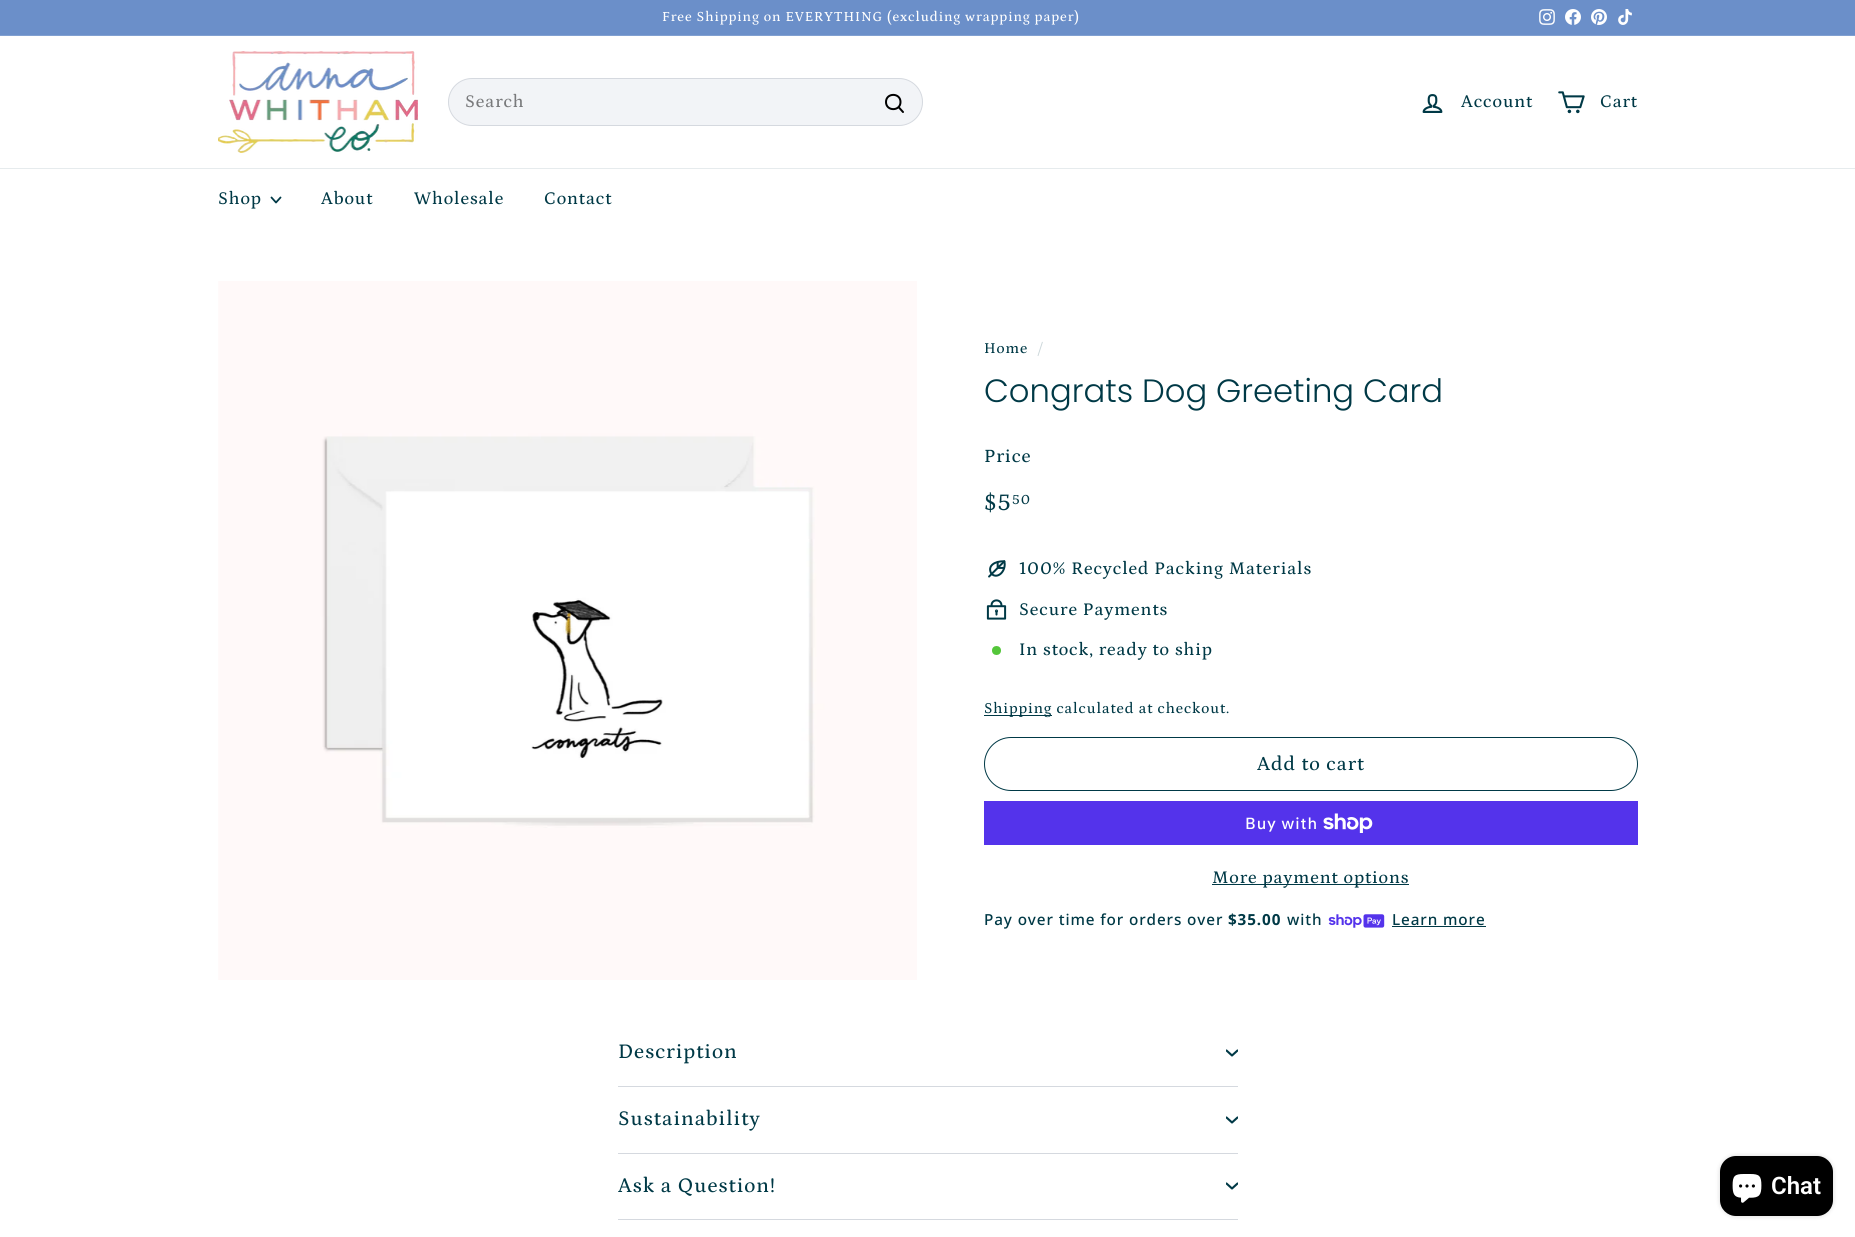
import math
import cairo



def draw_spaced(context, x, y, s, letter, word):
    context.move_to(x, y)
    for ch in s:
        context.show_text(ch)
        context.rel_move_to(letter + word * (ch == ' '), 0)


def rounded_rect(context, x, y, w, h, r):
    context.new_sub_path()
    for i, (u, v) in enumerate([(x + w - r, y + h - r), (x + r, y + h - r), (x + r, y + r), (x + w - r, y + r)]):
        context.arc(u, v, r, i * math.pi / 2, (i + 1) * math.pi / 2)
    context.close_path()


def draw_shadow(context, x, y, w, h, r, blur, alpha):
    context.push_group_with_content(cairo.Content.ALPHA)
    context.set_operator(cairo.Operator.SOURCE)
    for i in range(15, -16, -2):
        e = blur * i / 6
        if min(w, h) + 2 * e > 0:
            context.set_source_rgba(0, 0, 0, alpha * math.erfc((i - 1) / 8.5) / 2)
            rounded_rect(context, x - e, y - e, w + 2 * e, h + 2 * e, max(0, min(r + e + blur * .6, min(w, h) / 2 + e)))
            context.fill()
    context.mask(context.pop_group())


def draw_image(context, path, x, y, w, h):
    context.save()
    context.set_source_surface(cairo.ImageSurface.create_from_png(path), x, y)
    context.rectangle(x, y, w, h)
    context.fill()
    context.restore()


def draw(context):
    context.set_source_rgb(1, 1, 1)
    context.paint()
    context.set_source_rgb(107 / 255, 143 / 255, 201 / 255)
    context.rectangle(0, 0, 1855, 35)
    context.fill()
    draw_image(context, "images/1.png", 1539, 9, 16, 16)
    draw_image(context, "images/2.png", 1565, 9, 16, 16)
    draw_image(context, "images/3.png", 1591, 9, 16, 16)
    draw_image(context, "images/4.png", 1618, 9, 14, 16)
    context.set_source_rgb(129 / 255, 160 / 255, 209 / 255)
    context.rectangle(0, 35, 1855, 1)
    context.fill()
    draw_image(context, "images/5.png", 218, 51, 200, 102)
    context.set_source_rgb(242 / 255, 244 / 255, 247 / 255)
    rounded_rect(context, 448.5, 78.5, 474, 47, 23.5)
    context.fill_preserve()
    context.set_source_rgb(213 / 255, 217 / 255, 223 / 255)
    context.set_line_width(1)
    context.stroke()
    context.new_path()
    context.move_to(900.5, 102)
    context.curve_to(900.5, 111.5, 886, 111.5, 886, 102)
    context.curve_to(886, 92.5, 900.5, 92.5, 900.5, 102)
    context.close_path()
    context.move_to(903, 112)
    context.line_to(898.5, 107)
    context.set_source_rgb(0, 0, 0)
    context.set_line_width(2)
    context.set_line_cap(cairo.LineCap.ROUND)
    context.set_line_join(cairo.LineJoin.ROUND)
    context.stroke()
    draw_image(context, "images/6.png", 1422, 94, 21, 19)
    draw_image(context, "images/7.png", 1558, 91, 27, 23)
    context.set_source_rgb(230 / 255, 235 / 255, 237 / 255)
    context.rectangle(0, 168, 1855, 1)
    context.fill()
    context.new_path()
    context.move_to(271.5, 197.5)
    context.line_to(276, 202.5)
    context.line_to(280.5, 197.5)
    context.set_source_rgb(0, 57 / 255, 70 / 255)
    context.set_line_width(1.8)
    context.stroke()
    draw_image(context, "images/8.png", 218, 281, 699, 699)
    draw_image(context, "images/9.png", 988, 560, 18, 18)
    draw_image(context, "images/10.png", 986, 599, 21, 21)
    context.set_source_rgb(84 / 255, 198 / 255, 58 / 255)
    context.arc(996.5, 650.5, 4.5, 0, 2 * math.pi)
    context.fill()
    context.set_source_rgb(0, 57 / 255, 70 / 255)
    context.rectangle(984, 715, 68, 1)
    context.fill()
    rounded_rect(context, 984.5, 737.5, 653, 53, 26.5)
    context.set_line_width(1)
    context.set_line_cap(cairo.LineCap.BUTT)
    context.set_line_join(cairo.LineJoin.MITER)
    context.stroke()
    context.set_source_rgb(84 / 255, 51 / 255, 235 / 255)
    context.rectangle(984, 801, 654, 44)
    context.fill()
    draw_image(context, "images/11.png", 1323, 813, 50, 20)
    context.set_source_rgb(0, 57 / 255, 70 / 255)
    context.rectangle(1212, 884, 197, 1)
    context.fill()
    draw_image(context, "images/12.png", 1328, 914, 57, 14)
    context.rectangle(1392, 926, 94, 1)
    context.fill()
    context.set_source_rgb(213 / 255, 217 / 255, 223 / 255)
    context.rectangle(618, 1086, 620, 1)
    context.fill()
    context.save()
    context.rectangle(1226, 1047, 12, 12)
    context.clip()
    context.new_path()
    context.move_to(1226.5, 1050.5)
    context.line_to(1232, 1055.5)
    context.line_to(1237.5, 1050.5)
    context.set_source_rgb(0, 57 / 255, 70 / 255)
    context.set_line_width(2.1)
    context.set_line_cap(cairo.LineCap.ROUND)
    context.set_line_join(cairo.LineJoin.ROUND)
    context.stroke()
    context.restore()
    context.rectangle(618, 1153, 620, 1)
    context.fill()
    context.save()
    context.rectangle(1226, 1114, 12, 12)
    context.clip()
    context.new_path()
    context.move_to(1226.5, 1117.5)
    context.line_to(1232, 1122.5)
    context.line_to(1237.5, 1117.5)
    context.set_source_rgb(0, 57 / 255, 70 / 255)
    context.set_line_width(2.1)
    context.set_line_cap(cairo.LineCap.ROUND)
    context.set_line_join(cairo.LineJoin.ROUND)
    context.stroke()
    context.restore()
    context.rectangle(618, 1219, 620, 1)
    context.fill()
    context.save()
    context.rectangle(1226, 1180, 12, 12)
    context.clip()
    context.new_path()
    context.move_to(1226.5, 1183.5)
    context.line_to(1232, 1188.5)
    context.line_to(1237.5, 1183.5)
    context.set_source_rgb(0, 57 / 255, 70 / 255)
    context.set_line_width(2.1)
    context.set_line_cap(cairo.LineCap.ROUND)
    context.set_line_join(cairo.LineJoin.ROUND)
    context.stroke()
    context.restore()
    context.set_source_rgb(0, 0, 0)
    draw_shadow(context, 1720, 1156, 113, 60, 16, 2.5, 0.15)
    context.set_source_rgb(0, 0, 0)
    rounded_rect(context, 1720, 1156, 113, 60, 16)
    context.fill()
    draw_image(context, "images/13.png", 1732, 1174, 30, 29)
    context.select_font_face("Petrona Medium")
    context.set_font_size(14)
    context.set_source_rgb(1, 1, 1)
    draw_spaced(context, 662, 21, "Free Shipping on EVERYTHING (excluding wrapping paper)", 0.9, 0)
    context.set_font_size(18)
    context.set_source_rgb(121 / 255, 122 / 255, 124 / 255)
    draw_spaced(context, 465, 107, "Search", 0.9, 0)
    context.set_source_rgb(0, 57 / 255, 70 / 255)
    draw_spaced(context, 1461, 107, "Account", 0.9, 0)
    draw_spaced(context, 1600, 107, "Cart", 0.9, 0)
    draw_spaced(context, 218, 204, "Shop", 0.9, 0)
    draw_spaced(context, 321, 204, "About", 0.9, 0)
    draw_spaced(context, 414, 204, "Wholesale", 0.9, 0)
    draw_spaced(context, 544, 204, "Contact", 0.9, 0)
    context.set_font_size(15.25)
    draw_spaced(context, 984, 353, "Home", 0.9, 0)
    context.set_source_rgb(204 / 255, 215 / 255, 218 / 255)
    draw_spaced(context, 1037, 353, "/", 0.9, 0)
    context.select_font_face("Poppins Light")
    context.set_font_size(32.25)
    context.set_source_rgb(0, 57 / 255, 70 / 255)
    context.move_to(984, 402)
    context.show_text("Congrats Dog Greeting Card")
    context.select_font_face("Petrona Medium")
    context.set_font_size(19)
    draw_spaced(context, 984, 462, "Price", 0.9, 0)
    context.set_font_size(24)
    draw_spaced(context, 984, 510, "$5", 0.9, 0)
    context.set_font_size(14)
    draw_spaced(context, 1012, 504, "50", 0.9, 0)
    context.set_font_size(18)
    draw_spaced(context, 1019, 574, "100% Recycled Packing Materials", 0.9, 0)
    draw_spaced(context, 1019, 615, "Secure Payments", 0.9, 0)
    draw_spaced(context, 1019, 655, "In stock, ready to ship", 0.9, 0)
    context.set_font_size(15.25)
    draw_spaced(context, 984, 713, "Shipping calculated at checkout.", 0.9, 0)
    context.set_font_size(20)
    draw_spaced(context, 1257, 770, "Add to cart", 1, 0)
    context.select_font_face("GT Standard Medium")
    context.set_font_size(16)
    context.set_source_rgb(1, 1, 1)
    draw_spaced(context, 1245, 829, "Buy with", 0.9, 0)
    context.select_font_face("Petrona Medium")
    context.set_font_size(18)
    context.set_source_rgb(0, 57 / 255, 70 / 255)
    draw_spaced(context, 1212, 883, "More payment options", 0.9, 0)
    context.select_font_face("Noto Sans Medium")
    context.set_font_size(15.25)
    draw_spaced(context, 984, 925, "Pay over time for orders over", 0.9, 0)
    context.select_font_face("Noto Sans", cairo.FontSlant.NORMAL, cairo.FontWeight.BOLD)
    draw_spaced(context, 1228, 925, "$35.00", 0.9, 0)
    context.select_font_face("Noto Sans Medium")
    draw_spaced(context, 1287, 925, "with", 0.9, 0)
    draw_spaced(context, 1392, 925, "Learn more", 0.9, 0)
    context.select_font_face("Petrona Medium")
    context.set_font_size(21)
    draw_spaced(context, 618, 1058, "Description", 1, 0)
    draw_spaced(context, 618, 1125, "Sustainability", 1, 0)
    draw_spaced(context, 618, 1192, "Ask a Question!", 1, 0)
    context.select_font_face("Roboto SemiBold")
    context.set_font_size(24)
    context.set_source_rgb(1, 1, 1)
    context.move_to(1771, 1194)
    context.show_text("Chat")


surface = cairo.ImageSurface(cairo.Format.RGB24, 1855, 1237)
context = cairo.Context(surface)
options = cairo.FontOptions()
options.set_hint_metrics(cairo.HintMetrics.OFF)
options.set_hint_style(cairo.HintStyle.NONE)
context.set_font_options(options)
context.set_miter_limit(4)
draw(context)
surface.write_to_png("out.png")
